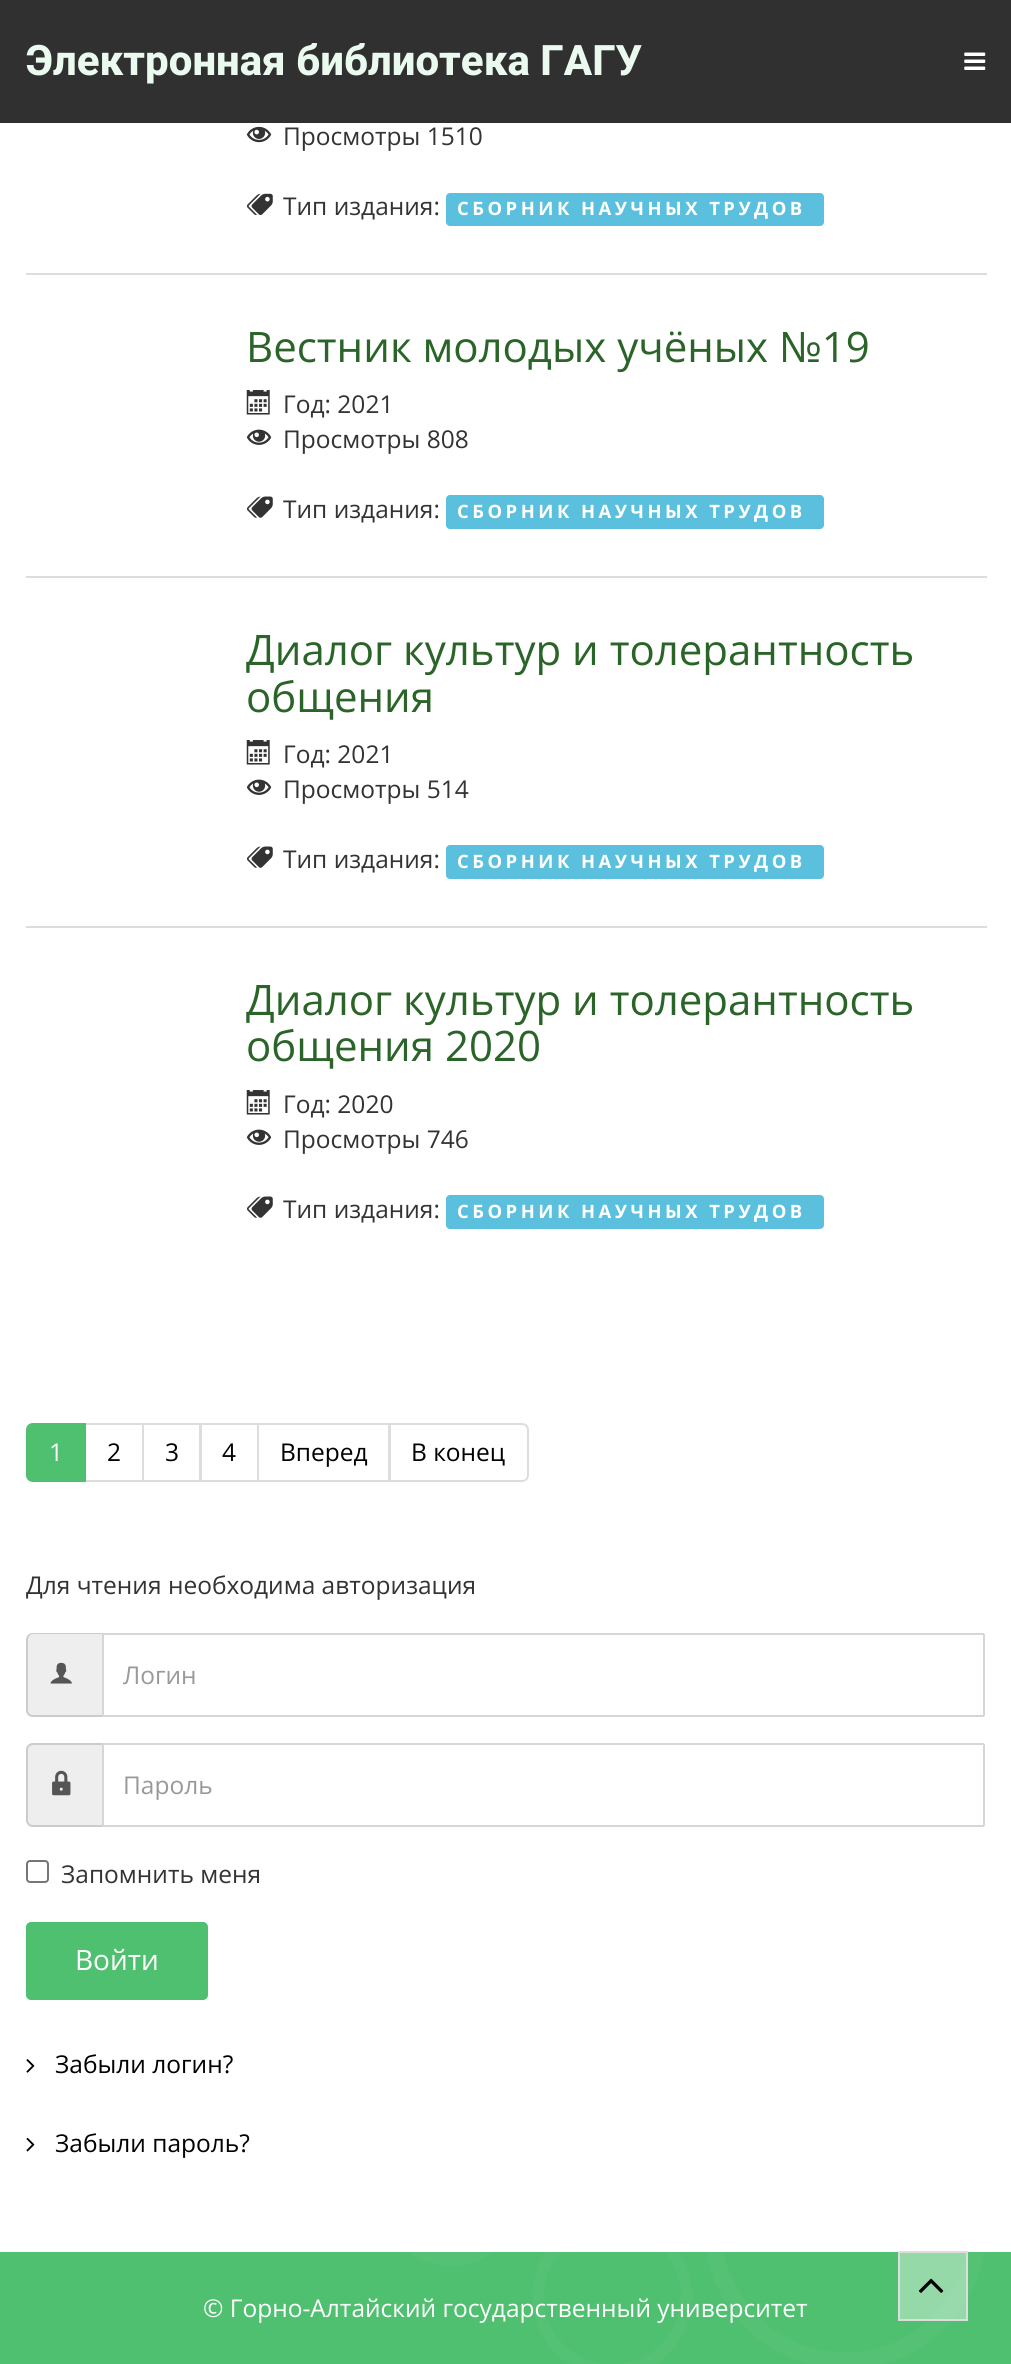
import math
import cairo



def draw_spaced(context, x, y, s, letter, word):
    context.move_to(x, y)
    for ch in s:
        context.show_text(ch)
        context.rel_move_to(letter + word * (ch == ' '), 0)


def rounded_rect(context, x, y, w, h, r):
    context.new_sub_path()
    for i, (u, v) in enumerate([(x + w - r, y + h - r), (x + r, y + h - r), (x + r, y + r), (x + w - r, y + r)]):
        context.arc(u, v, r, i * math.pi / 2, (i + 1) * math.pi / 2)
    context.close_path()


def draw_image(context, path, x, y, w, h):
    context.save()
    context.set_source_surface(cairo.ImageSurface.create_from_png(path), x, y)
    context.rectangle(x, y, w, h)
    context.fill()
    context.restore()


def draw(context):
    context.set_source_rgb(1, 1, 1)
    context.paint()
    context.set_source_rgb(48 / 255, 48 / 255, 48 / 255)
    context.rectangle(0, 0, 1011, 123)
    context.fill()
    draw_image(context, "images/1.png", 964, 52, 22, 18)
    draw_image(context, "images/2.png", 246, 126, 26, 17)
    draw_image(context, "images/3.png", 247, 193, 26, 22)
    context.set_source_rgb(91 / 255, 192 / 255, 222 / 255)
    rounded_rect(context, 446, 193, 378, 33, 4)
    context.fill()
    context.set_source_rgb(221 / 255, 221 / 255, 221 / 255)
    context.rectangle(26, 273, 961, 2)
    context.fill()
    draw_image(context, "images/4.png", 246, 390, 24, 25)
    draw_image(context, "images/5.png", 246, 429, 26, 16)
    draw_image(context, "images/6.png", 247, 496, 26, 22)
    context.set_source_rgb(91 / 255, 192 / 255, 222 / 255)
    rounded_rect(context, 446, 495, 378, 34, 4)
    context.fill()
    context.set_source_rgb(221 / 255, 221 / 255, 221 / 255)
    context.rectangle(26, 576, 961, 2)
    context.fill()
    draw_image(context, "images/4.png", 246, 740, 24, 25)
    draw_image(context, "images/5.png", 246, 779, 26, 16)
    draw_image(context, "images/6.png", 247, 846, 26, 22)
    context.set_source_rgb(91 / 255, 192 / 255, 222 / 255)
    rounded_rect(context, 446, 845, 378, 34, 4)
    context.fill()
    context.set_source_rgb(221 / 255, 221 / 255, 221 / 255)
    context.rectangle(26, 926, 961, 2)
    context.fill()
    draw_image(context, "images/4.png", 246, 1090, 24, 25)
    draw_image(context, "images/5.png", 246, 1129, 26, 16)
    draw_image(context, "images/6.png", 247, 1196, 26, 22)
    context.set_source_rgb(91 / 255, 192 / 255, 222 / 255)
    rounded_rect(context, 446, 1195, 378, 34, 4)
    context.fill()
    context.rectangle(85, 1424, 58, 57)
    context.set_source_rgb(221 / 255, 221 / 255, 221 / 255)
    context.stroke()
    context.set_source_rgb(79 / 255, 191 / 255, 112 / 255)
    context.new_path()
    context.move_to(33, 1424)
    context.line_to(85, 1424)
    context.line_to(85, 1481)
    context.line_to(33, 1481)
    context.curve_to(29.5, 1481, 27, 1478.5, 27, 1475)
    context.line_to(27, 1430)
    context.curve_to(27, 1426.5, 29.5, 1424, 33, 1424)
    context.close_path()
    context.fill_preserve()
    context.stroke()
    context.rectangle(143, 1424, 57, 57)
    context.set_source_rgb(221 / 255, 221 / 255, 221 / 255)
    context.stroke()
    context.rectangle(201, 1424, 57, 57)
    context.stroke()
    context.rectangle(258, 1424, 131, 57)
    context.stroke()
    context.set_source_rgb(1, 1, 1)
    context.new_path()
    context.move_to(390, 1424)
    context.line_to(522, 1424)
    context.curve_to(525.5, 1424, 528, 1426.5, 528, 1430)
    context.line_to(528, 1475)
    context.curve_to(528, 1478.5, 525.5, 1481, 522, 1481)
    context.line_to(390, 1481)
    context.close_path()
    context.fill_preserve()
    context.set_source_rgb(221 / 255, 221 / 255, 221 / 255)
    context.stroke()
    context.set_source_rgb(238 / 255, 238 / 255, 238 / 255)
    context.new_path()
    context.move_to(33, 1633)
    context.line_to(102, 1633)
    context.line_to(102, 1717)
    context.line_to(33, 1717)
    context.curve_to(29, 1717, 26, 1714, 26, 1710)
    context.line_to(26, 1640)
    context.curve_to(26, 1636, 29, 1633, 33, 1633)
    context.close_path()
    context.fill()
    context.set_source_rgb(204 / 255, 204 / 255, 204 / 255)
    context.set_fill_rule(cairo.FillRule.EVEN_ODD)
    context.new_path()
    context.move_to(33, 1633)
    context.line_to(102, 1633)
    context.line_to(102, 1717)
    context.line_to(33, 1717)
    context.curve_to(29, 1717, 26, 1714, 26, 1710)
    context.line_to(26, 1640)
    context.curve_to(26, 1636, 29, 1633, 33, 1633)
    context.close_path()
    context.move_to(33, 1634)
    context.line_to(102, 1634)
    context.line_to(102, 1715)
    context.line_to(33, 1715)
    context.curve_to(30, 1715, 28, 1713, 28, 1710)
    context.line_to(28, 1640)
    context.curve_to(28, 1637, 30, 1634, 33, 1634)
    context.close_path()
    context.fill()
    draw_image(context, "images/7.png", 50, 1662, 22, 22)
    context.new_path()
    context.move_to(103, 1634)
    context.line_to(983, 1634)
    context.curve_to(983.5, 1634, 984, 1634.5, 984, 1635)
    context.line_to(984, 1715)
    context.curve_to(984, 1715.5, 983.5, 1716, 983, 1716)
    context.line_to(103, 1716)
    context.close_path()
    context.set_source_rgb(212 / 255, 215 / 255, 215 / 255)
    context.stroke()
    context.set_source_rgb(238 / 255, 238 / 255, 238 / 255)
    context.new_path()
    context.move_to(33, 1743)
    context.line_to(102, 1743)
    context.line_to(102, 1827)
    context.line_to(33, 1827)
    context.curve_to(29, 1827, 26, 1824, 26, 1820)
    context.line_to(26, 1750)
    context.curve_to(26, 1746, 29, 1743, 33, 1743)
    context.close_path()
    context.fill()
    context.set_source_rgb(204 / 255, 204 / 255, 204 / 255)
    context.new_path()
    context.move_to(33, 1743)
    context.line_to(102, 1743)
    context.line_to(102, 1827)
    context.line_to(33, 1827)
    context.curve_to(29, 1827, 26, 1824, 26, 1820)
    context.line_to(26, 1750)
    context.curve_to(26, 1746, 29, 1743, 33, 1743)
    context.close_path()
    context.move_to(33, 1745)
    context.line_to(102, 1745)
    context.line_to(102, 1825)
    context.line_to(33, 1825)
    context.curve_to(30, 1825, 28, 1823, 28, 1820)
    context.line_to(28, 1750)
    context.curve_to(28, 1747, 30, 1745, 33, 1745)
    context.close_path()
    context.fill()
    draw_image(context, "images/8.png", 52, 1770, 19, 26)
    context.new_path()
    context.move_to(103, 1744)
    context.line_to(983, 1744)
    context.curve_to(983.5, 1744, 984, 1744.5, 984, 1745)
    context.line_to(984, 1825)
    context.curve_to(984, 1825.5, 983.5, 1826, 983, 1826)
    context.line_to(103, 1826)
    context.close_path()
    context.set_source_rgb(212 / 255, 215 / 255, 215 / 255)
    context.stroke()
    rounded_rect(context, 27, 1861, 21, 21, 3)
    context.set_source_rgb(118 / 255, 118 / 255, 118 / 255)
    context.stroke()
    context.set_source_rgb(79 / 255, 191 / 255, 112 / 255)
    rounded_rect(context, 26, 1922, 182, 78, 5)
    context.fill()
    draw_image(context, "images/9.png", 26, 2059, 9, 14)
    draw_image(context, "images/10.png", 26, 2137, 9, 15)
    context.rectangle(0, 2252, 1011, 112)
    context.fill()
    context.select_font_face("Roboto ExtraBold")
    context.set_font_size(42)
    context.set_source_rgb(234 / 255, 250 / 255, 239 / 255)
    context.move_to(26, 75)
    context.show_text("Электронная библиотека ГАГУ")
    context.select_font_face("Open Sans")
    context.set_font_size(24.5)
    context.set_source_rgb(51 / 255, 51 / 255, 51 / 255)
    context.move_to(283, 145)
    context.show_text("Просмотры 1510")
    context.move_to(283, 215)
    context.show_text("Тип издания:")
    context.select_font_face("Open Sans", cairo.FontSlant.NORMAL, cairo.FontWeight.BOLD)
    context.set_font_size(18.4)
    context.set_source_rgb(1, 1, 1)
    draw_spaced(context, 457, 215, "СБОРНИК НАУЧНЫХ ТРУДОВ", 3.5, 0)
    context.select_font_face("Open Sans")
    context.set_font_size(42)
    context.set_source_rgb(43 / 255, 100 / 255, 40 / 255)
    context.move_to(246, 362)
    context.show_text("Вестник молодых учёных №19")
    context.set_font_size(24.5)
    context.set_source_rgb(51 / 255, 51 / 255, 51 / 255)
    context.move_to(283, 413)
    context.show_text("Год: 2021")
    context.move_to(283, 448)
    context.show_text("Просмотры 808")
    context.move_to(283, 518)
    context.show_text("Тип издания:")
    context.select_font_face("Open Sans", cairo.FontSlant.NORMAL, cairo.FontWeight.BOLD)
    context.set_font_size(18.4)
    context.set_source_rgb(1, 1, 1)
    draw_spaced(context, 457, 518, "СБОРНИК НАУЧНЫХ ТРУДОВ", 3.5, 0)
    context.select_font_face("Open Sans")
    context.set_font_size(42)
    context.set_source_rgb(43 / 255, 100 / 255, 40 / 255)
    context.move_to(246, 665)
    context.show_text("Диалог культур и толерантность")
    context.move_to(246, 712)
    context.show_text("общения")
    context.set_font_size(24.5)
    context.set_source_rgb(51 / 255, 51 / 255, 51 / 255)
    context.move_to(283, 763)
    context.show_text("Год: 2021")
    context.move_to(283, 798)
    context.show_text("Просмотры 514")
    context.move_to(283, 868)
    context.show_text("Тип издания:")
    context.select_font_face("Open Sans", cairo.FontSlant.NORMAL, cairo.FontWeight.BOLD)
    context.set_font_size(18.4)
    context.set_source_rgb(1, 1, 1)
    draw_spaced(context, 457, 868, "СБОРНИК НАУЧНЫХ ТРУДОВ", 3.5, 0)
    context.select_font_face("Open Sans")
    context.set_font_size(42)
    context.set_source_rgb(43 / 255, 100 / 255, 40 / 255)
    context.move_to(246, 1015)
    context.show_text("Диалог культур и толерантность")
    context.move_to(246, 1061)
    context.show_text("общения 2020")
    context.set_font_size(24.5)
    context.set_source_rgb(51 / 255, 51 / 255, 51 / 255)
    context.move_to(283, 1113)
    context.show_text("Год: 2020")
    context.move_to(283, 1148)
    context.show_text("Просмотры 746")
    context.move_to(283, 1218)
    context.show_text("Тип издания:")
    context.select_font_face("Open Sans", cairo.FontSlant.NORMAL, cairo.FontWeight.BOLD)
    context.set_font_size(18.4)
    context.set_source_rgb(1, 1, 1)
    draw_spaced(context, 457, 1218, "СБОРНИК НАУЧНЫХ ТРУДОВ", 3.5, 0)
    context.select_font_face("Open Sans")
    context.set_font_size(24.5)
    context.move_to(49, 1461)
    context.show_text("1")
    context.set_source_rgb(0, 0, 0)
    context.move_to(107, 1461)
    context.show_text("2")
    context.move_to(165, 1461)
    context.show_text("3")
    context.move_to(222, 1461)
    context.show_text("4")
    context.move_to(280, 1461)
    context.show_text("Вперед")
    context.move_to(411, 1461)
    context.show_text("В конец")
    context.set_source_rgb(51 / 255, 51 / 255, 51 / 255)
    context.move_to(26, 1594)
    context.show_text("Для чтения необходима авторизация")
    context.set_source_rgb(153 / 255, 153 / 255, 153 / 255)
    context.move_to(123, 1684)
    context.show_text("Логин")
    context.move_to(123, 1794)
    context.show_text("Пароль")
    context.set_source_rgb(51 / 255, 51 / 255, 51 / 255)
    context.move_to(61, 1883)
    context.show_text("Запомнить меня")
    context.set_font_size(28)
    context.set_source_rgb(1, 1, 1)
    context.move_to(75, 1970)
    context.show_text("Войти")
    context.set_font_size(24.5)
    context.set_source_rgb(0, 0, 0)
    context.move_to(55, 2073)
    context.show_text("Забыли логин?")
    context.move_to(55, 2152)
    context.show_text("Забыли пароль?")
    context.set_source_rgb(1, 1, 1)
    context.move_to(203, 2317)
    context.show_text("© Горно-Алтайский государственный университет")
    draw_image(context, "images/11.png", 410, 2252, 574, 112)
    context.set_source_rgba(1, 1, 1, 0.4)
    context.rectangle(899, 2252, 68, 68)
    context.fill_preserve()
    context.set_source_rgb(221 / 255, 221 / 255, 221 / 255)
    context.stroke()
    draw_image(context, "images/12.png", 918, 2278, 26, 15)


surface = cairo.ImageSurface(cairo.Format.RGB24, 1011, 2364)
context = cairo.Context(surface)
options = cairo.FontOptions()
options.set_hint_metrics(cairo.HintMetrics.OFF)
options.set_hint_style(cairo.HintStyle.NONE)
context.set_font_options(options)
context.set_miter_limit(4)
draw(context)
surface.write_to_png("out.png")
